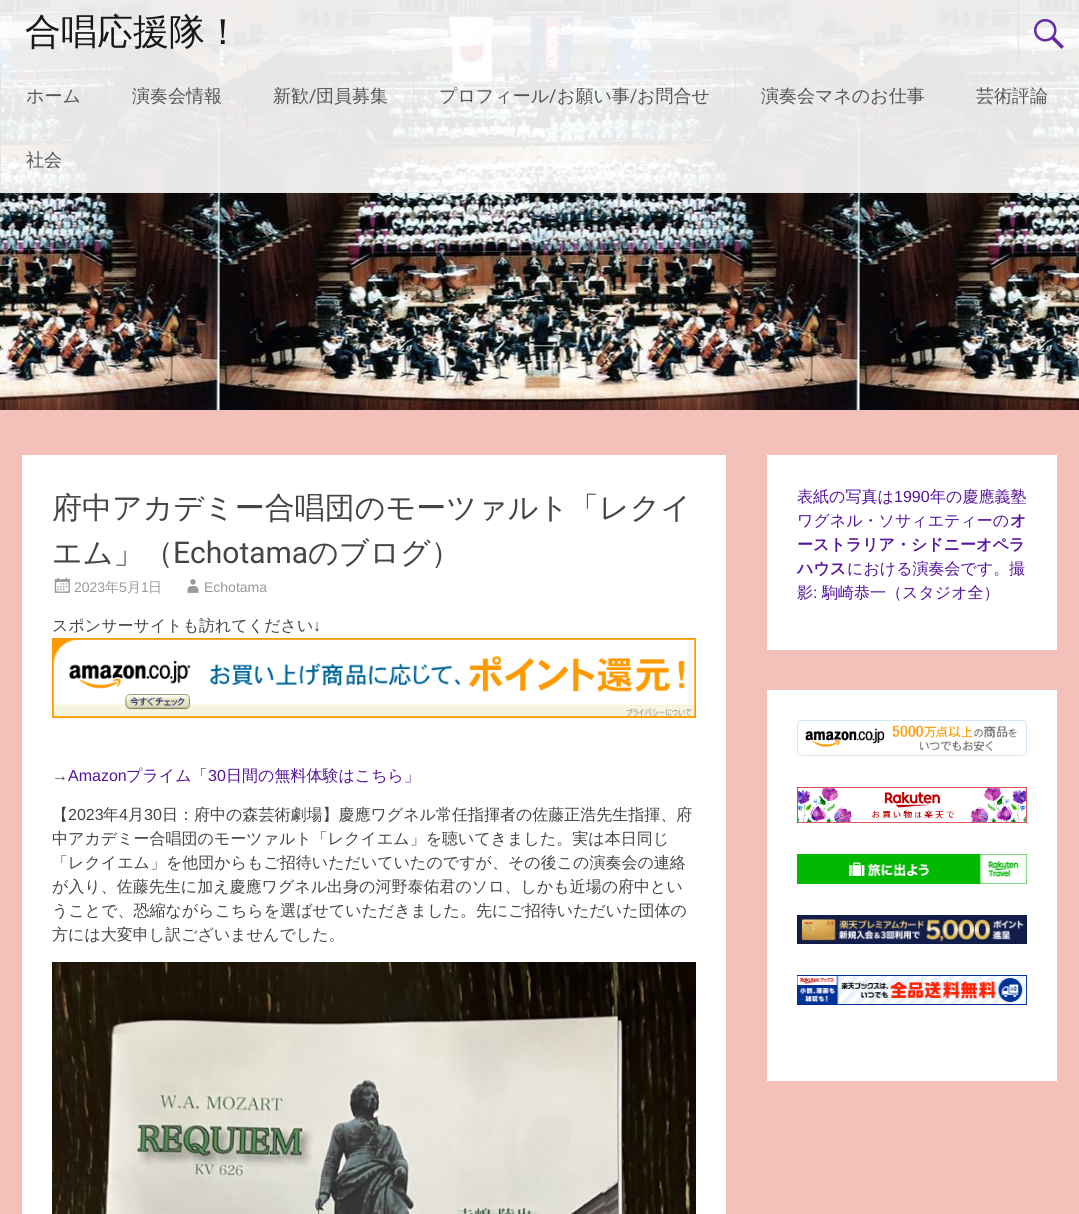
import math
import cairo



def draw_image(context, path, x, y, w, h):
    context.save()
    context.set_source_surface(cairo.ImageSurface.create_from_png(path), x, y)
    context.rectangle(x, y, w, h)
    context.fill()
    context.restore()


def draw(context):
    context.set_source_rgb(1, 1, 1)
    context.paint()
    draw_image(context, "images/1.png", 0, 0, 1079, 410)
    context.set_source_rgba(1, 1, 1, 0.9)
    context.rectangle(0, 0, 1079, 193)
    context.fill()
    context.set_source_rgba(225 / 255, 228 / 255, 230 / 255, 0.9)
    context.rectangle(0, 192, 1079, 1)
    context.fill()
    context.rectangle(1018, 0, 1, 64)
    context.fill()
    draw_image(context, "images/2.png", 1034, 19, 30, 30)
    context.rectangle(0, 64, 1, 64)
    context.fill()
    context.rectangle(106, 64, 1, 64)
    context.fill()
    context.rectangle(247, 64, 1, 64)
    context.fill()
    context.rectangle(413, 64, 1, 64)
    context.fill()
    context.rectangle(735, 64, 1, 64)
    context.fill()
    context.rectangle(950, 64, 1, 64)
    context.fill()
    context.rectangle(0, 128, 1, 64)
    context.fill()
    context.set_source_rgb(244 / 255, 193 / 255, 186 / 255)
    context.rectangle(0, 410, 1079, 804)
    context.fill()
    context.set_source_rgb(1, 1, 1)
    context.rectangle(22, 455, 704, 759)
    context.fill()
    draw_image(context, "images/3.png", 54, 577, 16, 16)
    draw_image(context, "images/4.png", 187, 579, 12, 14)
    draw_image(context, "images/5.png", 52, 638, 644, 80)
    draw_image(context, "images/6.png", 52, 962, 644, 252)
    context.rectangle(767, 455, 290, 195)
    context.fill()
    context.rectangle(767, 690, 290, 391)
    context.fill()
    draw_image(context, "images/7.png", 797, 720, 230, 36)
    draw_image(context, "images/8.png", 797, 787, 230, 36)
    draw_image(context, "images/9.png", 797, 854, 230, 30)
    draw_image(context, "images/10.png", 797, 915, 230, 29)
    draw_image(context, "images/11.png", 797, 975, 230, 30)
    context.select_font_face("WenQuanYi Zen Hei Medium")
    context.set_font_size(36)
    context.set_source_rgb(24 / 255, 24 / 255, 24 / 255)
    context.move_to(25, 44)
    context.show_text("合唱応援隊！")
    context.set_font_size(18)
    context.set_source_rgb(85 / 255, 85 / 255, 85 / 255)
    context.move_to(26, 102)
    context.show_text("ホーム")
    context.move_to(132, 102)
    context.show_text("演奏会情報")
    context.move_to(273, 102)
    context.show_text("新歓")
    context.select_font_face("Roboto")
    context.move_to(309, 102)
    context.show_text("/")
    context.select_font_face("WenQuanYi Zen Hei Medium")
    context.move_to(316, 102)
    context.show_text("団員募集")
    context.move_to(439, 102)
    context.show_text("プロフィール")
    context.select_font_face("Roboto")
    context.move_to(549, 102)
    context.show_text("/")
    context.select_font_face("WenQuanYi Zen Hei Medium")
    context.move_to(557, 102)
    context.show_text("お願い事")
    context.select_font_face("Roboto")
    context.move_to(630, 102)
    context.show_text("/")
    context.select_font_face("WenQuanYi Zen Hei Medium")
    context.move_to(637, 102)
    context.show_text("お問合せ")
    context.move_to(761, 102)
    context.show_text("演奏会マネのお仕事")
    context.move_to(976, 102)
    context.show_text("芸術評論")
    context.move_to(26, 166)
    context.show_text("社会")
    context.set_font_size(30)
    context.set_source_rgb(68 / 255, 68 / 255, 68 / 255)
    context.move_to(52, 518)
    context.show_text("府中アカデミー合唱団のモーツァルト「レクイ")
    context.move_to(52, 563)
    context.show_text("エム」（")
    context.select_font_face("Roboto")
    context.move_to(173, 563)
    context.show_text("Echotama")
    context.select_font_face("WenQuanYi Zen Hei Medium")
    context.move_to(308, 563)
    context.show_text("のブログ）")
    context.select_font_face("Liberation Sans")
    context.set_font_size(14)
    context.set_source_rgb(153 / 255, 153 / 255, 153 / 255)
    context.move_to(74, 592)
    context.show_text("2023")
    context.select_font_face("WenQuanYi Zen Hei Medium")
    context.move_to(105, 592)
    context.show_text("年")
    context.select_font_face("Liberation Sans")
    context.move_to(119, 592)
    context.show_text("5")
    context.select_font_face("WenQuanYi Zen Hei Medium")
    context.move_to(127, 592)
    context.show_text("月")
    context.select_font_face("Liberation Sans")
    context.move_to(141, 592)
    context.show_text("1")
    context.select_font_face("WenQuanYi Zen Hei Medium")
    context.move_to(148, 592)
    context.show_text("日")
    context.select_font_face("Liberation Sans")
    context.move_to(204, 592)
    context.show_text("Echotama")
    context.select_font_face("WenQuanYi Zen Hei Medium")
    context.set_font_size(16)
    context.set_source_rgb(68 / 255, 68 / 255, 68 / 255)
    context.move_to(52, 631)
    context.show_text("スポンサーサイトも訪れてください")
    context.select_font_face("Liberation Sans")
    context.move_to(313, 631)
    context.show_text("↓")
    context.move_to(52, 781)
    context.show_text("→")
    context.set_source_rgb(85 / 255, 20 / 255, 155 / 255)
    context.move_to(68, 781)
    context.show_text("Amazon")
    context.select_font_face("WenQuanYi Zen Hei Medium")
    context.move_to(126, 781)
    context.show_text("プライム「")
    context.select_font_face("Liberation Sans")
    context.move_to(208, 781)
    context.show_text("30")
    context.select_font_face("WenQuanYi Zen Hei Medium")
    context.move_to(226, 781)
    context.show_text("日間の無料体験はこちら」")
    context.set_source_rgb(68 / 255, 68 / 255, 68 / 255)
    context.move_to(52, 820)
    context.show_text("【")
    context.select_font_face("Liberation Sans")
    context.move_to(68, 820)
    context.show_text("2023")
    context.select_font_face("WenQuanYi Zen Hei Medium")
    context.move_to(103, 820)
    context.show_text("年")
    context.select_font_face("Liberation Sans")
    context.move_to(119, 820)
    context.show_text("4")
    context.select_font_face("WenQuanYi Zen Hei Medium")
    context.move_to(128, 820)
    context.show_text("月")
    context.select_font_face("Liberation Sans")
    context.move_to(144, 820)
    context.show_text("30")
    context.select_font_face("WenQuanYi Zen Hei Medium")
    context.move_to(162, 820)
    context.show_text("日：府中の森芸術劇場】慶應ワグネル常任指揮者の佐藤正浩先生指揮、府")
    context.move_to(52, 844)
    context.show_text("中アカデミー合唱団のモーツァルト「レクイエム」を聴いてきました。実は本日同じ")
    context.move_to(52, 868)
    context.show_text("「レクイエム」を他団からもご招待いただいていたのですが、その後この演奏会の連絡")
    context.move_to(52, 892)
    context.show_text("が入り、佐藤先生に加え慶應ワグネル出身の河野泰佑君のソロ、しかも近場の府中とい")
    context.move_to(52, 916)
    context.show_text("うことで、恐縮ながらこちらを選ばせていただきました。先にご招待いただいた団体の")
    context.move_to(52, 940)
    context.show_text("方には大変申し訳ございませんでした。")
    context.set_source_rgb(85 / 255, 20 / 255, 155 / 255)
    context.move_to(797, 502)
    context.show_text("表紙の写真は")
    context.select_font_face("Liberation Sans")
    context.move_to(894, 502)
    context.show_text("1990")
    context.select_font_face("WenQuanYi Zen Hei Medium")
    context.move_to(930, 502)
    context.show_text("年の慶應義塾")
    context.move_to(797, 526)
    context.show_text("ワグネル・ソサィエティーの")
    context.select_font_face("WenQuanYi Zen Hei", cairo.FontSlant.NORMAL, cairo.FontWeight.BOLD)
    context.move_to(1010, 526)
    context.show_text("オ")
    context.move_to(797, 550)
    context.show_text("ーストラリア・シドニーオペラ")
    context.move_to(797, 574)
    context.show_text("ハウス")
    context.select_font_face("WenQuanYi Zen Hei Medium")
    context.move_to(847, 574)
    context.show_text("における演奏会です。撮")
    context.move_to(797, 598)
    context.show_text("影")
    context.select_font_face("Liberation Sans")
    context.move_to(813, 598)
    context.show_text(":")
    context.select_font_face("WenQuanYi Zen Hei Medium")
    context.move_to(822, 598)
    context.show_text("駒崎恭一（スタジオ全）")


surface = cairo.ImageSurface(cairo.Format.RGB24, 1079, 1214)
context = cairo.Context(surface)
options = cairo.FontOptions()
options.set_hint_metrics(cairo.HintMetrics.OFF)
options.set_hint_style(cairo.HintStyle.NONE)
context.set_font_options(options)
context.set_miter_limit(4)
draw(context)
surface.write_to_png("out.png")
